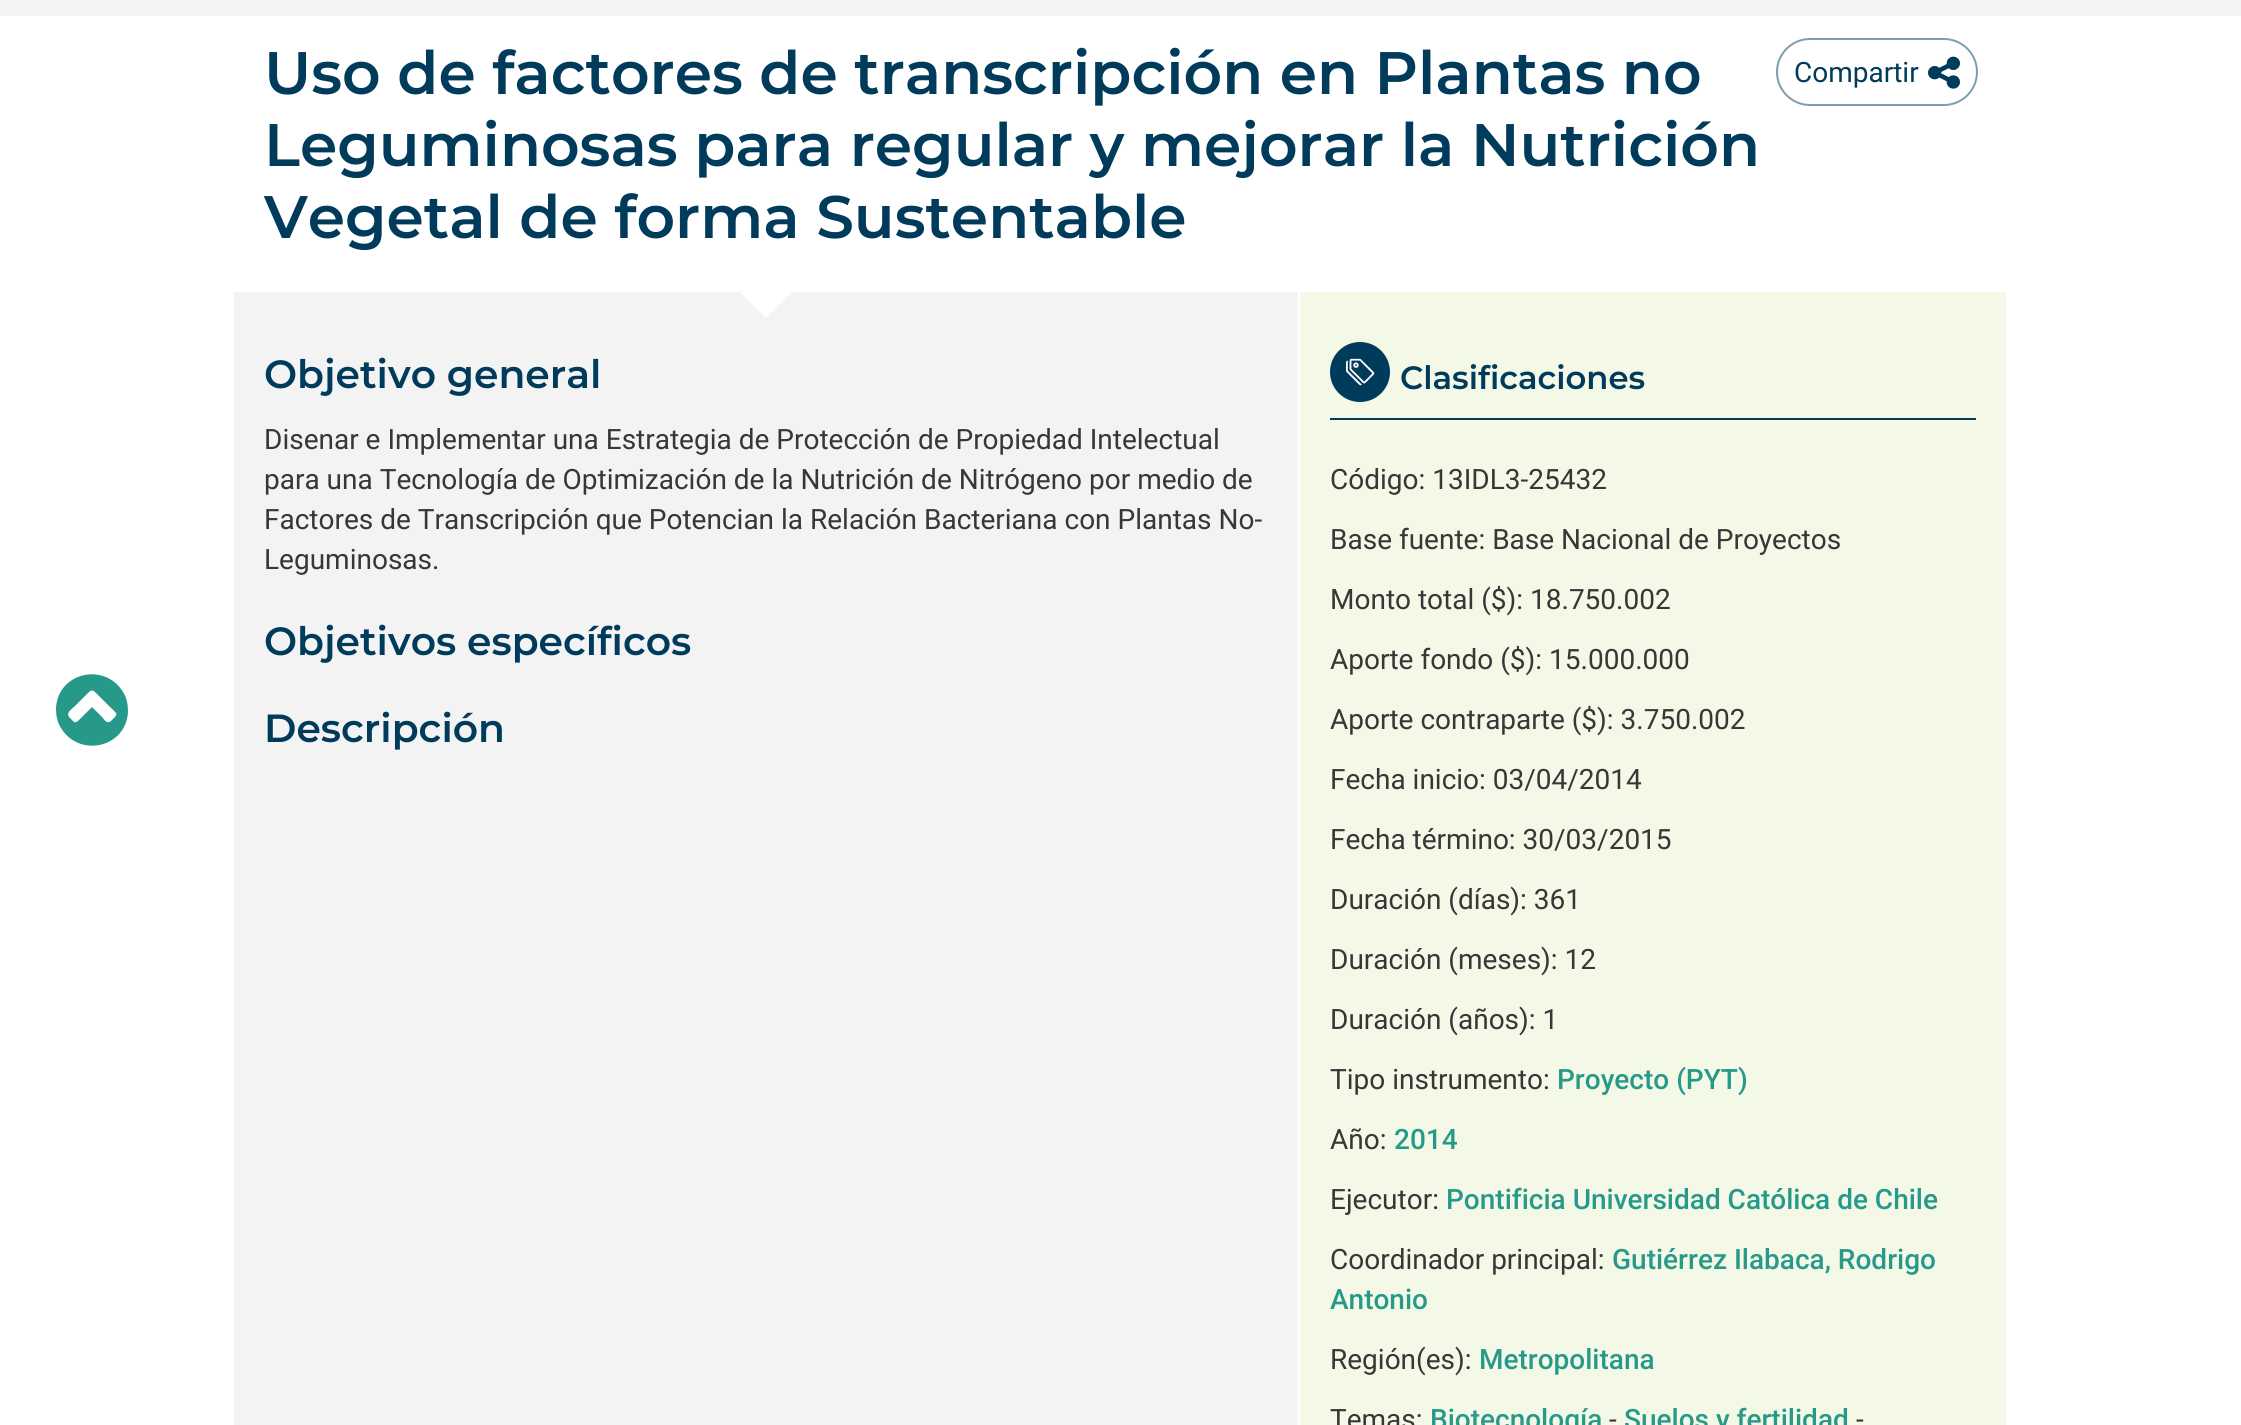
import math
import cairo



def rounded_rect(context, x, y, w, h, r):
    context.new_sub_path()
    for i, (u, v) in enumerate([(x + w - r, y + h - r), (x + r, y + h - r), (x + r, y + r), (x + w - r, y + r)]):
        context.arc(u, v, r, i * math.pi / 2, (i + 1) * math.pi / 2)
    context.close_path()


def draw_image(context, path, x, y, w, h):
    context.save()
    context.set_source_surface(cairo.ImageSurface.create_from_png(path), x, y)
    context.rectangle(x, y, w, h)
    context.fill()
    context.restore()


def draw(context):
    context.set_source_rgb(1, 1, 1)
    context.paint()
    context.set_source_rgb(39 / 255, 153 / 255, 137 / 255)
    context.new_path()
    context.move_to(111, 721)
    context.curve_to(119, 713, 118, 715, 108, 705)
    context.line_to(98, 695)
    context.curve_to(92, 689, 92, 689, 86, 695)
    context.line_to(76, 705)
    context.curve_to(71, 710, 65, 713, 70, 718)
    context.curve_to(75, 723, 75, 724, 80, 719)
    context.line_to(92, 707)
    context.line_to(102, 717)
    context.curve_to(103, 718, 107, 725, 111, 721)
    context.close_path()
    context.move_to(123, 692)
    context.curve_to(127, 698, 128, 705, 128, 712)
    context.curve_to(126, 748, 79, 758, 61, 728)
    context.curve_to(57, 722, 56, 715, 56, 708)
    context.curve_to(58, 672, 105, 662, 123, 692)
    context.close_path()
    context.fill()
    context.set_source_rgb(243 / 255, 243 / 255, 243 / 255)
    context.rectangle(0, 0, 2241, 16)
    context.fill()
    context.rectangle(234, 292, 1064, 1133)
    context.fill()
    context.set_source_rgb(1, 1, 1)
    context.new_path()
    context.move_to(766, 261)
    context.line_to(794, 290)
    context.line_to(766, 318)
    context.line_to(738, 290)
    context.close_path()
    context.fill()
    rounded_rect(context, 1777, 39, 200, 66, 33)
    context.set_source_rgb(128 / 255, 157 / 255, 174 / 255)
    context.stroke()
    draw_image(context, "images/1.png", 1928, 56, 32, 33)
    context.set_source_rgb(243 / 255, 249 / 255, 230 / 255)
    context.rectangle(1300, 292, 706, 1133)
    context.fill()
    context.set_source_rgb(0, 59 / 255, 92 / 255)
    context.rectangle(1330, 418, 646, 2)
    context.fill()
    context.arc(1360, 372, 30, 0, 2 * math.pi)
    context.fill()
    draw_image(context, "images/2.png", 1346, 358, 29, 28)
    context.select_font_face("Montserrat SemiBold")
    context.set_font_size(59.9)
    context.move_to(264, 94)
    context.show_text("Uso de factores de transcripción en Plantas no")
    context.move_to(264, 166)
    context.show_text("Leguminosas para regular y mejorar la Nutrición")
    context.move_to(264, 238)
    context.show_text("Vegetal de forma Sustentable")
    context.select_font_face("Roboto")
    context.set_font_size(28)
    context.move_to(1794, 82)
    context.show_text("Compartir")
    context.select_font_face("Montserrat SemiBold")
    context.set_font_size(39.25)
    context.move_to(264, 388)
    context.show_text("Objetivo general")
    context.select_font_face("Roboto")
    context.set_font_size(28)
    context.set_source_rgb(55 / 255, 55 / 255, 55 / 255)
    context.move_to(264, 449)
    context.show_text("Disenar e Implementar una Estrategia de Protección de Propiedad Intelectual")
    context.move_to(264, 489)
    context.show_text("para una Tecnología de Optimización de la Nutrición de Nitrógeno por medio de")
    context.move_to(264, 529)
    context.show_text("Factores de Transcripción que Potencian la Relación Bacteriana con Plantas No-")
    context.move_to(264, 569)
    context.show_text("Leguminosas.")
    context.select_font_face("Montserrat SemiBold")
    context.set_font_size(39.25)
    context.set_source_rgb(0, 59 / 255, 92 / 255)
    context.move_to(264, 655)
    context.show_text("Objetivos específicos")
    context.move_to(264, 742)
    context.show_text("Descripción")
    context.set_font_size(32.25)
    context.move_to(1400, 389)
    context.show_text("Clasificaciones")
    context.select_font_face("Roboto")
    context.set_font_size(28)
    context.set_source_rgb(55 / 255, 55 / 255, 55 / 255)
    context.move_to(1330, 489)
    context.show_text("Código: 13IDL3-25432")
    context.move_to(1330, 549)
    context.show_text("Base fuente: Base Nacional de Proyectos")
    context.move_to(1330, 609)
    context.show_text("Monto total ($): 18.750.002")
    context.move_to(1330, 669)
    context.show_text("Aporte fondo ($): 15.000.000")
    context.move_to(1330, 729)
    context.show_text("Aporte contraparte ($): 3.750.002")
    context.move_to(1330, 789)
    context.show_text("Fecha inicio: 03/04/2014")
    context.move_to(1330, 849)
    context.show_text("Fecha término: 30/03/2015")
    context.move_to(1330, 909)
    context.show_text("Duración (días): 361")
    context.move_to(1330, 969)
    context.show_text("Duración (meses): 12")
    context.move_to(1330, 1029)
    context.show_text("Duración (años): 1")
    context.move_to(1330, 1089)
    context.show_text("Tipo instrumento:")
    context.select_font_face("Roboto Medium")
    context.set_source_rgb(39 / 255, 153 / 255, 137 / 255)
    context.move_to(1557, 1089)
    context.show_text("Proyecto (PYT)")
    context.select_font_face("Roboto")
    context.set_source_rgb(55 / 255, 55 / 255, 55 / 255)
    context.move_to(1330, 1149)
    context.show_text("Año:")
    context.select_font_face("Roboto Medium")
    context.set_source_rgb(39 / 255, 153 / 255, 137 / 255)
    context.move_to(1394, 1149)
    context.show_text("2014")
    context.select_font_face("Roboto")
    context.set_source_rgb(55 / 255, 55 / 255, 55 / 255)
    context.move_to(1330, 1209)
    context.show_text("Ejecutor:")
    context.select_font_face("Roboto Medium")
    context.set_source_rgb(39 / 255, 153 / 255, 137 / 255)
    context.move_to(1446, 1209)
    context.show_text("Pontificia Universidad Católica de Chile")
    context.select_font_face("Roboto")
    context.set_source_rgb(55 / 255, 55 / 255, 55 / 255)
    context.move_to(1330, 1269)
    context.show_text("Coordinador principal:")
    context.select_font_face("Roboto Medium")
    context.set_source_rgb(39 / 255, 153 / 255, 137 / 255)
    context.move_to(1612, 1269)
    context.show_text("Gutiérrez Ilabaca, Rodrigo")
    context.move_to(1330, 1309)
    context.show_text("Antonio")
    context.select_font_face("Roboto")
    context.set_source_rgb(55 / 255, 55 / 255, 55 / 255)
    context.move_to(1330, 1369)
    context.show_text("Región(es):")
    context.select_font_face("Roboto Medium")
    context.set_source_rgb(39 / 255, 153 / 255, 137 / 255)
    context.move_to(1479, 1369)
    context.show_text("Metropolitana")
    context.select_font_face("Roboto")
    context.set_source_rgb(55 / 255, 55 / 255, 55 / 255)
    context.move_to(1330, 1429)
    context.show_text("Temas:")
    context.select_font_face("Roboto Medium")
    context.set_source_rgb(39 / 255, 153 / 255, 137 / 255)
    context.move_to(1430, 1429)
    context.show_text("Biotecnología")
    context.select_font_face("Roboto")
    context.set_source_rgb(55 / 255, 55 / 255, 55 / 255)
    context.move_to(1609, 1429)
    context.show_text("-")
    context.select_font_face("Roboto Medium")
    context.set_source_rgb(39 / 255, 153 / 255, 137 / 255)
    context.move_to(1624, 1429)
    context.show_text("Suelos y fertilidad")
    context.select_font_face("Roboto")
    context.set_source_rgb(55 / 255, 55 / 255, 55 / 255)
    context.move_to(1856, 1429)
    context.show_text("-")


surface = cairo.ImageSurface(cairo.Format.RGB24, 2241, 1425)
context = cairo.Context(surface)
options = cairo.FontOptions()
options.set_hint_metrics(cairo.HintMetrics.OFF)
options.set_hint_style(cairo.HintStyle.NONE)
context.set_font_options(options)
context.set_miter_limit(4)
draw(context)
surface.write_to_png("out.png")
